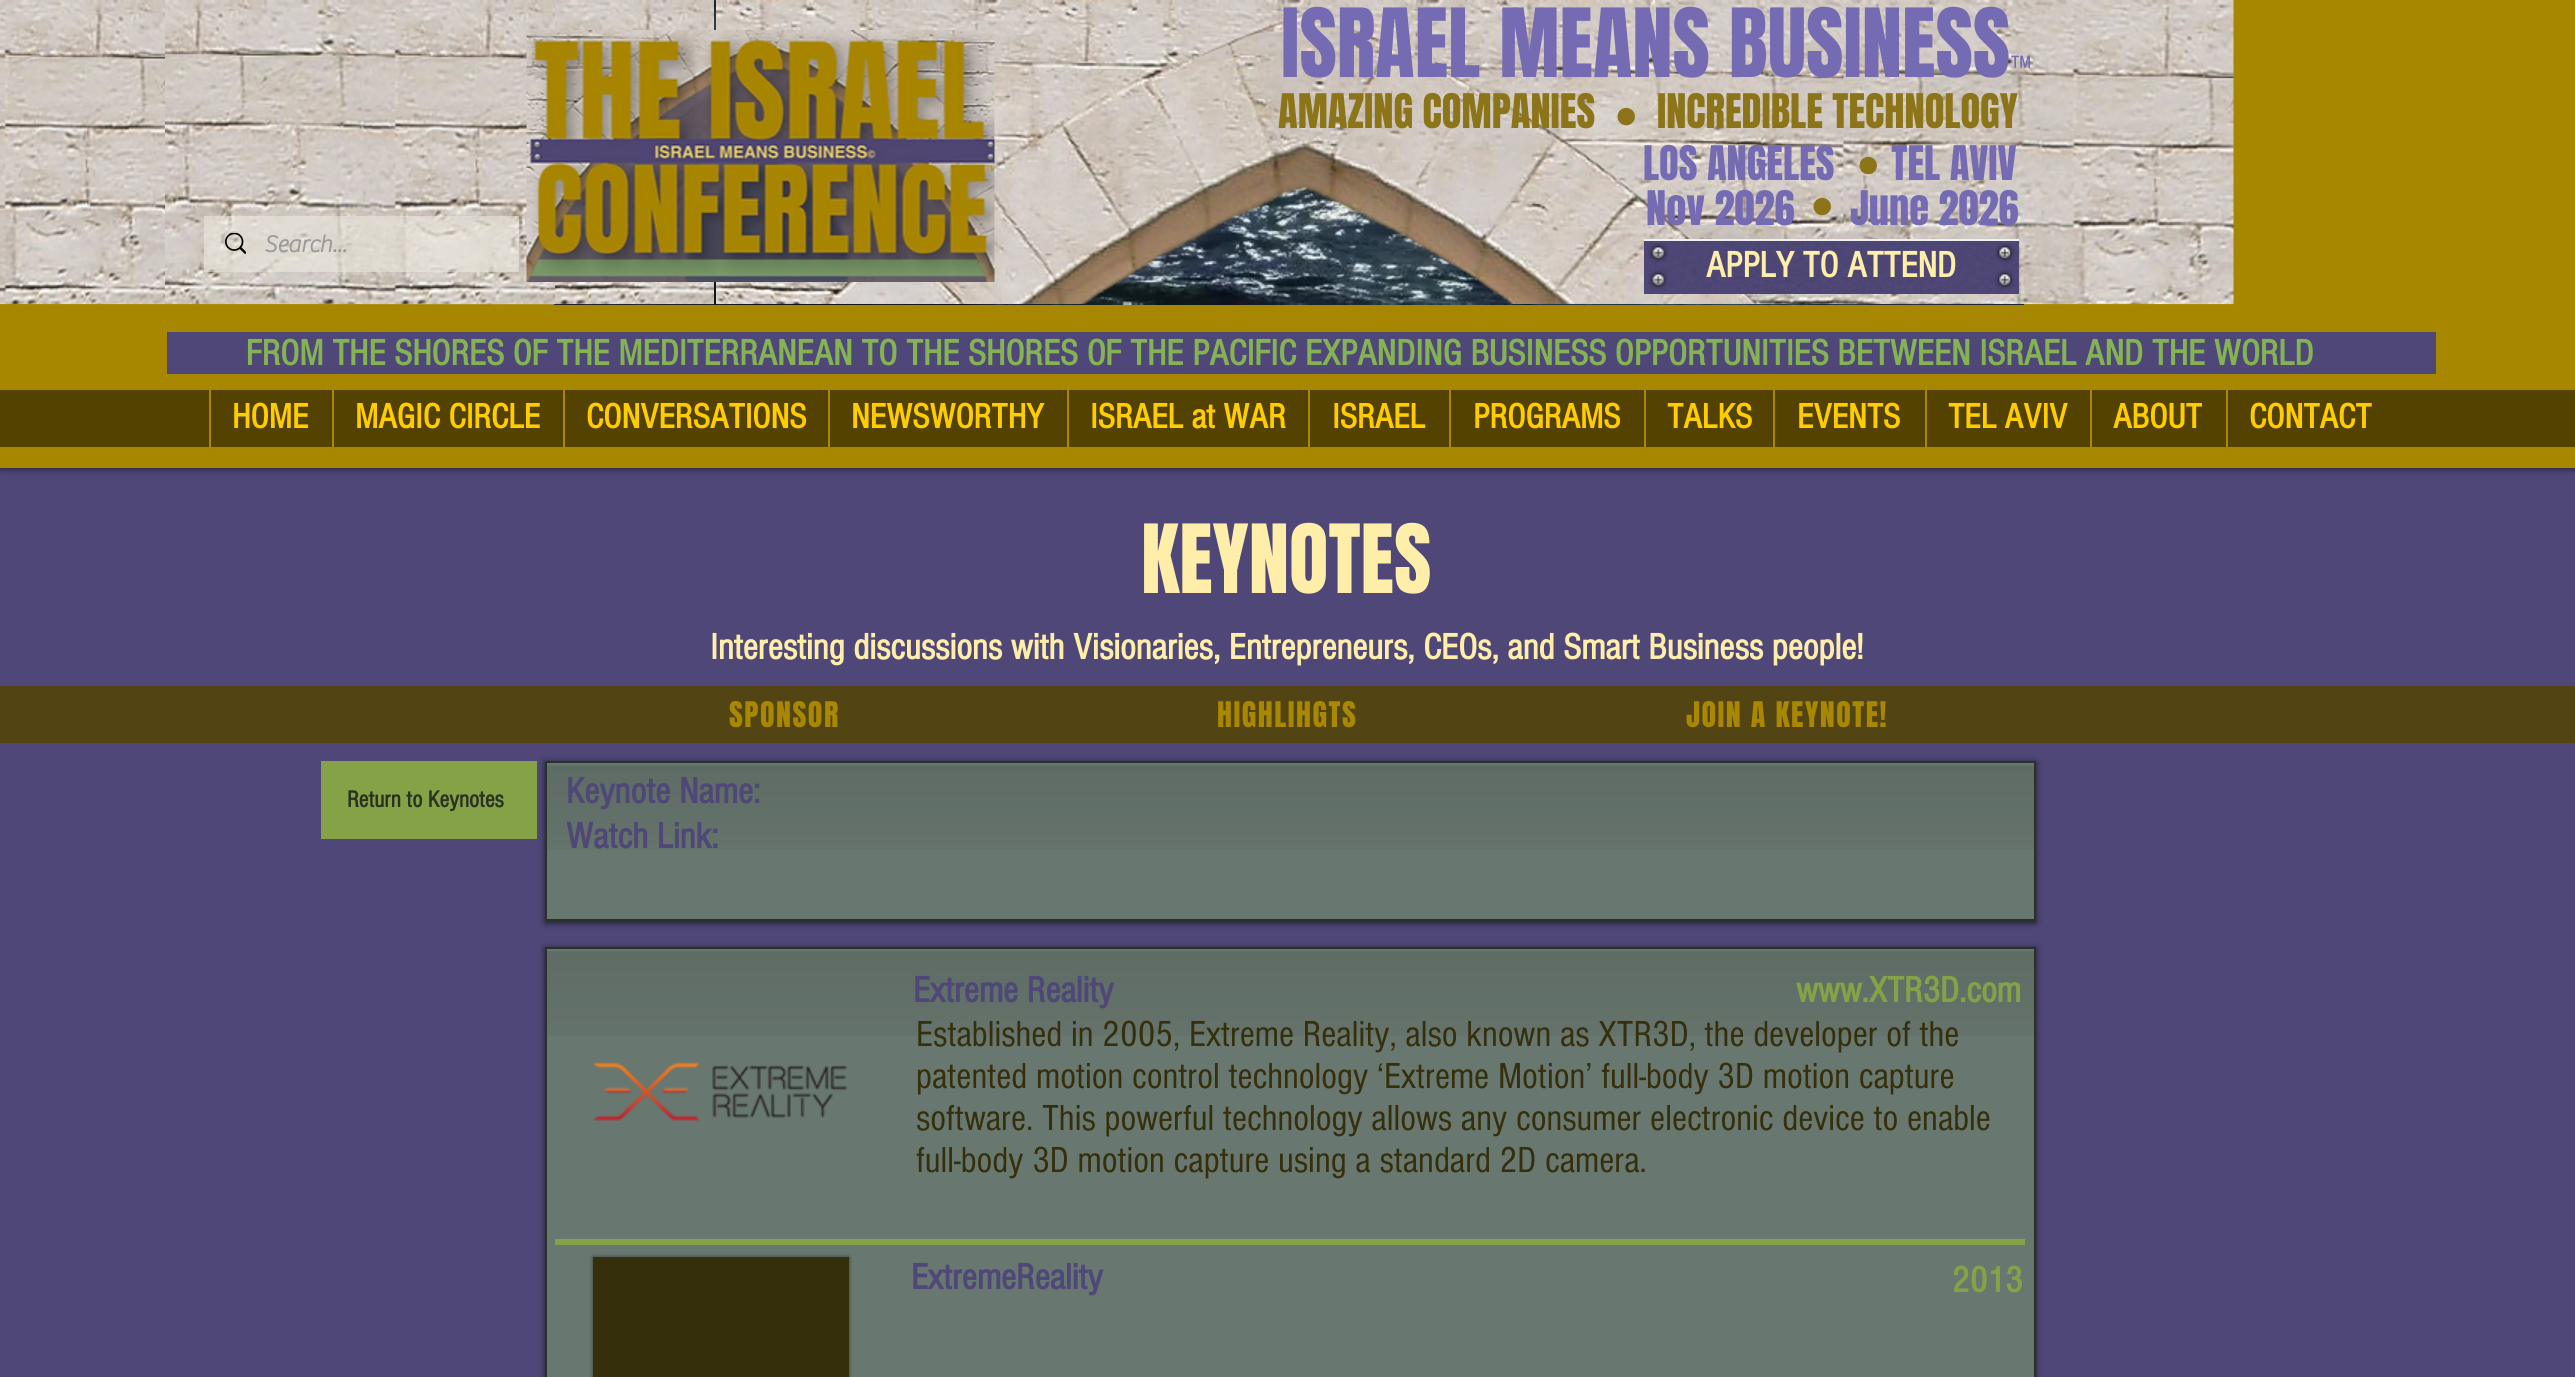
import math
import cairo



def draw_spaced(context, x, y, s, letter, word):
    context.move_to(x, y)
    for ch in s:
        context.show_text(ch)
        context.rel_move_to(letter + word * (ch == ' '), 0)


def rounded_rect(context, x, y, w, h, r):
    context.new_sub_path()
    for i, (u, v) in enumerate([(x + w - r, y + h - r), (x + r, y + h - r), (x + r, y + r), (x + w - r, y + r)]):
        context.arc(u, v, r, i * math.pi / 2, (i + 1) * math.pi / 2)
    context.close_path()


def draw_shadow(context, x, y, w, h, r, blur, alpha):
    context.push_group_with_content(cairo.Content.ALPHA)
    context.set_operator(cairo.Operator.SOURCE)
    for i in range(15, -16, -2):
        e = blur * i / 6
        if min(w, h) + 2 * e > 0:
            context.set_source_rgba(0, 0, 0, alpha * math.erfc((i - 1) / 8.5) / 2)
            rounded_rect(context, x - e, y - e, w + 2 * e, h + 2 * e, max(0, min(r + e + blur * .6, min(w, h) / 2 + e)))
            context.fill()
    context.mask(context.pop_group())


def draw_image(context, path, x, y, w, h):
    context.save()
    context.set_source_surface(cairo.ImageSurface.create_from_png(path), x, y)
    context.rectangle(x, y, w, h)
    context.fill()
    context.restore()


def draw(context):
    context.set_source_rgb(78 / 255, 71 / 255, 119 / 255)
    context.paint()
    context.set_source_rgb(0, 0, 0)
    draw_shadow(context, 0, 0, 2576, 468, 0, 4, 0.7)
    context.set_source_rgb(168 / 255, 135 / 255, 0)
    context.rectangle(0, 0, 2575, 468)
    context.fill()
    draw_image(context, "images/1.png", 0, 0, 165, 305)
    draw_image(context, "images/4.png", 554, 0, 1470, 305)
    draw_image(context, "images/14.png", 405, 304, 149, 1)
    draw_image(context, "images/3.png", 324, 0, 390, 305)
    draw_image(context, "images/2.png", 165, 0, 390, 305)
    draw_image(context, "images/5.png", 716, 0, 1161, 305)
    draw_image(context, "images/6.png", 1843, 0, 391, 305)
    context.set_source_rgba(242 / 255, 238 / 255, 228 / 255, 0.5)
    context.rectangle(204, 216, 315, 56)
    context.fill()
    draw_image(context, "images/7.png", 225, 233, 21, 21)
    draw_image(context, "images/8.png", 526, 30, 469, 252)
    context.set_source_rgb(78 / 255, 71 / 255, 119 / 255)
    context.rectangle(1644, 239, 375, 55)
    context.fill()
    draw_image(context, "images/9.png", 1644, 238, 374, 56)
    context.set_source_rgba(1, 1, 1, 0.92)
    context.rectangle(1644, 239, 375, 2)
    context.fill()
    draw_image(context, "images/10.png", 1648, 243, 20, 20)
    draw_image(context, "images/11.png", 1995, 243, 20, 20)
    draw_image(context, "images/12.png", 1648, 270, 20, 20)
    draw_image(context, "images/13.png", 1995, 270, 20, 20)
    context.set_source_rgb(78 / 255, 71 / 255, 119 / 255)
    context.rectangle(167, 332, 2269, 42)
    context.fill()
    context.set_source_rgb(84 / 255, 67 / 255, 0)
    context.rectangle(0, 390, 2575, 57)
    context.fill()
    context.set_source_rgb(169 / 255, 135 / 255, 0)
    context.rectangle(209, 390, 2, 57)
    context.fill()
    context.rectangle(332, 390, 2, 57)
    context.fill()
    context.rectangle(563, 390, 2, 57)
    context.fill()
    context.rectangle(828, 390, 2, 57)
    context.fill()
    context.rectangle(1067, 390, 2, 57)
    context.fill()
    context.rectangle(1308, 390, 2, 57)
    context.fill()
    context.rectangle(1449, 390, 2, 57)
    context.fill()
    context.rectangle(1644, 390, 2, 57)
    context.fill()
    context.rectangle(1773, 390, 2, 57)
    context.fill()
    context.rectangle(1925, 390, 2, 57)
    context.fill()
    context.rectangle(2090, 390, 2, 57)
    context.fill()
    context.rectangle(2226, 390, 2, 57)
    context.fill()
    context.set_source_rgb(83 / 255, 68 / 255, 20 / 255)
    context.rectangle(0, 686, 2575, 57)
    context.fill()
    context.set_source_rgb(134 / 255, 162 / 255, 71 / 255)
    context.rectangle(321, 761, 216, 78)
    context.fill()
    context.save()
    context.set_fill_rule(cairo.FillRule.EVEN_ODD)
    context.new_path()
    context.move_to(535, 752)
    context.line_to(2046, 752)
    context.line_to(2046, 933)
    context.line_to(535, 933)
    context.close_path()
    context.move_to(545, 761)
    context.line_to(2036, 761)
    context.line_to(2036, 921)
    context.line_to(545, 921)
    context.close_path()
    context.clip()
    context.set_source_rgb(0, 0, 0)
    draw_shadow(context, 545, 762, 1491, 161, 0, 3, 0.6)
    context.restore()
    context.set_source_rgba(123 / 255, 153 / 255, 106 / 255, 0.59)
    context.rectangle(547, 763, 1487, 156)
    context.fill()
    draw_image(context, "images/15.png", 544, 765, 1490, 85)
    context.rectangle(546, 762, 1489, 158)
    context.set_source_rgb(41 / 255, 51 / 255, 35 / 255)
    context.stroke()
    context.save()
    context.set_fill_rule(cairo.FillRule.EVEN_ODD)
    context.new_path()
    context.move_to(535, 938)
    context.line_to(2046, 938)
    context.line_to(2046, 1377)
    context.line_to(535, 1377)
    context.close_path()
    context.move_to(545, 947)
    context.line_to(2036, 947)
    context.line_to(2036, 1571)
    context.line_to(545, 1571)
    context.close_path()
    context.clip()
    context.set_source_rgb(0, 0, 0)
    draw_shadow(context, 545, 948, 1491, 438, 0, 3, 0.6)
    context.restore()
    context.set_source_rgba(123 / 255, 153 / 255, 106 / 255, 0.59)
    context.rectangle(547, 949, 1487, 428)
    context.fill()
    draw_image(context, "images/15.png", 544, 951, 1490, 85)
    context.rectangle(546, 948, 1489, 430)
    context.set_source_rgb(41 / 255, 51 / 255, 35 / 255)
    context.stroke()
    draw_image(context, "images/16.png", 593, 1061, 255, 60)
    context.set_source_rgb(134 / 255, 162 / 255, 71 / 255)
    context.rectangle(555, 1239, 1470, 6)
    context.fill()
    context.set_source_rgb(0, 0, 0)
    draw_shadow(context, 593, 1257, 256, 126, 0, 2, 0.5)
    context.set_source_rgb(54 / 255, 47 / 255, 12 / 255)
    context.rectangle(593, 1257, 256, 120)
    context.fill()
    context.select_font_face("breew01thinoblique", cairo.FontSlant.NORMAL, cairo.FontWeight.BOLD)
    context.set_font_size(24)
    context.set_source_rgb(153 / 255, 153 / 255, 153 / 255)
    context.move_to(264, 252)
    context.show_text("Search...")
    context.select_font_face("Anton")
    context.set_font_size(81)
    context.set_source_rgb(116 / 255, 107 / 255, 179 / 255)
    context.move_to(1281, 77)
    context.show_text("ISRAEL MEANS BUSINESS")
    context.select_font_face("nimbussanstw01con")
    context.set_font_size(32)
    context.move_to(2011, 77)
    context.show_text("™")
    context.select_font_face("Anton")
    context.set_font_size(40.5)
    context.set_source_rgb(140 / 255, 116 / 255, 24 / 255)
    context.move_to(1278, 128)
    context.show_text("AMAZING COMPANIES")
    context.select_font_face("Liberation Serif")
    context.move_to(1614, 128)
    context.show_text("●")
    context.select_font_face("Anton")
    context.move_to(1657, 128)
    context.show_text("INCREDIBLE TECHNOLOGY")
    context.set_source_rgb(116 / 255, 107 / 255, 179 / 255)
    context.move_to(1643, 180)
    context.show_text("LOS ANGELES      TEL AVIV")
    context.select_font_face("Liberation Serif")
    context.set_source_rgb(140 / 255, 116 / 255, 24 / 255)
    context.move_to(1856, 177)
    context.show_text("●")
    context.select_font_face("Anton")
    context.set_source_rgb(116 / 255, 107 / 255, 179 / 255)
    context.move_to(1646, 225)
    context.show_text("Nov 2026")
    context.select_font_face("Liberation Serif")
    context.set_source_rgb(140 / 255, 116 / 255, 24 / 255)
    context.move_to(1810, 218)
    context.show_text("●")
    context.select_font_face("Anton")
    context.set_source_rgb(116 / 255, 107 / 255, 179 / 255)
    context.move_to(1850, 225)
    context.show_text("June 2026")
    context.select_font_face("nimbussanstw01con", cairo.FontSlant.NORMAL, cairo.FontWeight.BOLD)
    context.set_font_size(37.5)
    context.set_source_rgb(1, 238 / 255, 170 / 255)
    context.move_to(1706, 277)
    context.show_text("APPLY TO ATTEND")
    context.set_source_rgb(133 / 255, 179 / 255, 84 / 255)
    context.move_to(246, 365)
    context.show_text("FROM THE SHORES OF THE MEDITERRANEAN TO THE SHORES OF THE PACIFIC EXPANDING BUSINESS OPPORTUNITIES BETWEEN ISRAEL AND THE WORLD")
    context.set_font_size(36)
    context.set_source_rgb(1, 204 / 255, 0)
    context.move_to(232, 428)
    context.show_text("HOME")
    context.move_to(355, 428)
    context.show_text("MAGIC CIRCLE")
    context.move_to(586, 428)
    context.show_text("CONVERSATIONS")
    context.move_to(851, 428)
    context.show_text("NEWSWORTHY")
    context.move_to(1090, 428)
    context.show_text("ISRAEL at WAR")
    context.move_to(1332, 428)
    context.show_text("ISRAEL")
    context.move_to(1473, 428)
    context.show_text("PROGRAMS")
    context.move_to(1667, 428)
    context.show_text("TALKS")
    context.move_to(1797, 428)
    context.show_text("EVENTS")
    context.move_to(1948, 428)
    context.show_text("TEL AVIV")
    context.move_to(2113, 428)
    context.show_text("ABOUT")
    context.move_to(2249, 428)
    context.show_text("CONTACT")
    context.select_font_face("Anton")
    context.set_font_size(81)
    context.set_source_rgb(1, 238 / 255, 170 / 255)
    context.move_to(1141, 593)
    context.show_text("KEYNOTES")
    context.select_font_face("nimbussanstw01con", cairo.FontSlant.NORMAL, cairo.FontWeight.BOLD)
    context.set_font_size(37.5)
    context.move_to(710, 659)
    context.show_text("Interesting discussions with Visionaries, Entrepreneurs, CEOs, and Smart Business people!")
    context.select_font_face("Anton")
    context.set_font_size(30)
    context.set_source_rgb(169 / 255, 135 / 255, 0)
    draw_spaced(context, 729, 727, "SPONSOR", 1.5, 0)
    draw_spaced(context, 1217, 727, "HIGHLIHGTS", 1.5, 0)
    draw_spaced(context, 1686, 727, "JOIN A KEYNOTE!", 1.5, 0)
    context.select_font_face("nimbussanstw01con", cairo.FontSlant.NORMAL, cairo.FontWeight.BOLD)
    context.set_font_size(24)
    context.set_source_rgb(41 / 255, 51 / 255, 35 / 255)
    context.move_to(347, 807)
    context.show_text("Return to Keynotes")
    context.set_font_size(37.5)
    context.set_source_rgb(78 / 255, 71 / 255, 119 / 255)
    context.move_to(566, 803)
    context.show_text("Keynote Name:")
    context.move_to(566, 848)
    context.show_text("Watch Link:")
    context.move_to(913, 1002)
    context.show_text("Extreme Reality")
    context.set_source_rgb(134 / 255, 162 / 255, 71 / 255)
    context.move_to(1796, 1002)
    context.show_text("www.XTR3D.com")
    context.select_font_face("nimbussanstw01con")
    context.set_source_rgb(54 / 255, 47 / 255, 12 / 255)
    context.move_to(916, 1046)
    context.show_text("Established in 2005, Extreme Reality, also known as XTR3D, the developer of the")
    context.move_to(916, 1088)
    context.show_text("patented motion control technology ‘Extreme Motion’ full-body 3D motion capture")
    context.move_to(916, 1130)
    context.show_text("software. This powerful technology allows any consumer electronic device to enable")
    context.move_to(916, 1172)
    context.show_text("full-body 3D motion capture using a standard 2D camera.")
    context.select_font_face("nimbussanstw01con", cairo.FontSlant.NORMAL, cairo.FontWeight.BOLD)
    context.set_source_rgb(78 / 255, 71 / 255, 119 / 255)
    context.move_to(911, 1289)
    context.show_text("ExtremeReality")
    context.set_source_rgb(134 / 255, 162 / 255, 71 / 255)
    context.move_to(1952, 1292)
    context.show_text("2013")


surface = cairo.ImageSurface(cairo.Format.RGB24, 2575, 1377)
context = cairo.Context(surface)
options = cairo.FontOptions()
options.set_hint_metrics(cairo.HintMetrics.OFF)
options.set_hint_style(cairo.HintStyle.NONE)
context.set_font_options(options)
context.set_miter_limit(4)
draw(context)
surface.write_to_png("out.png")
